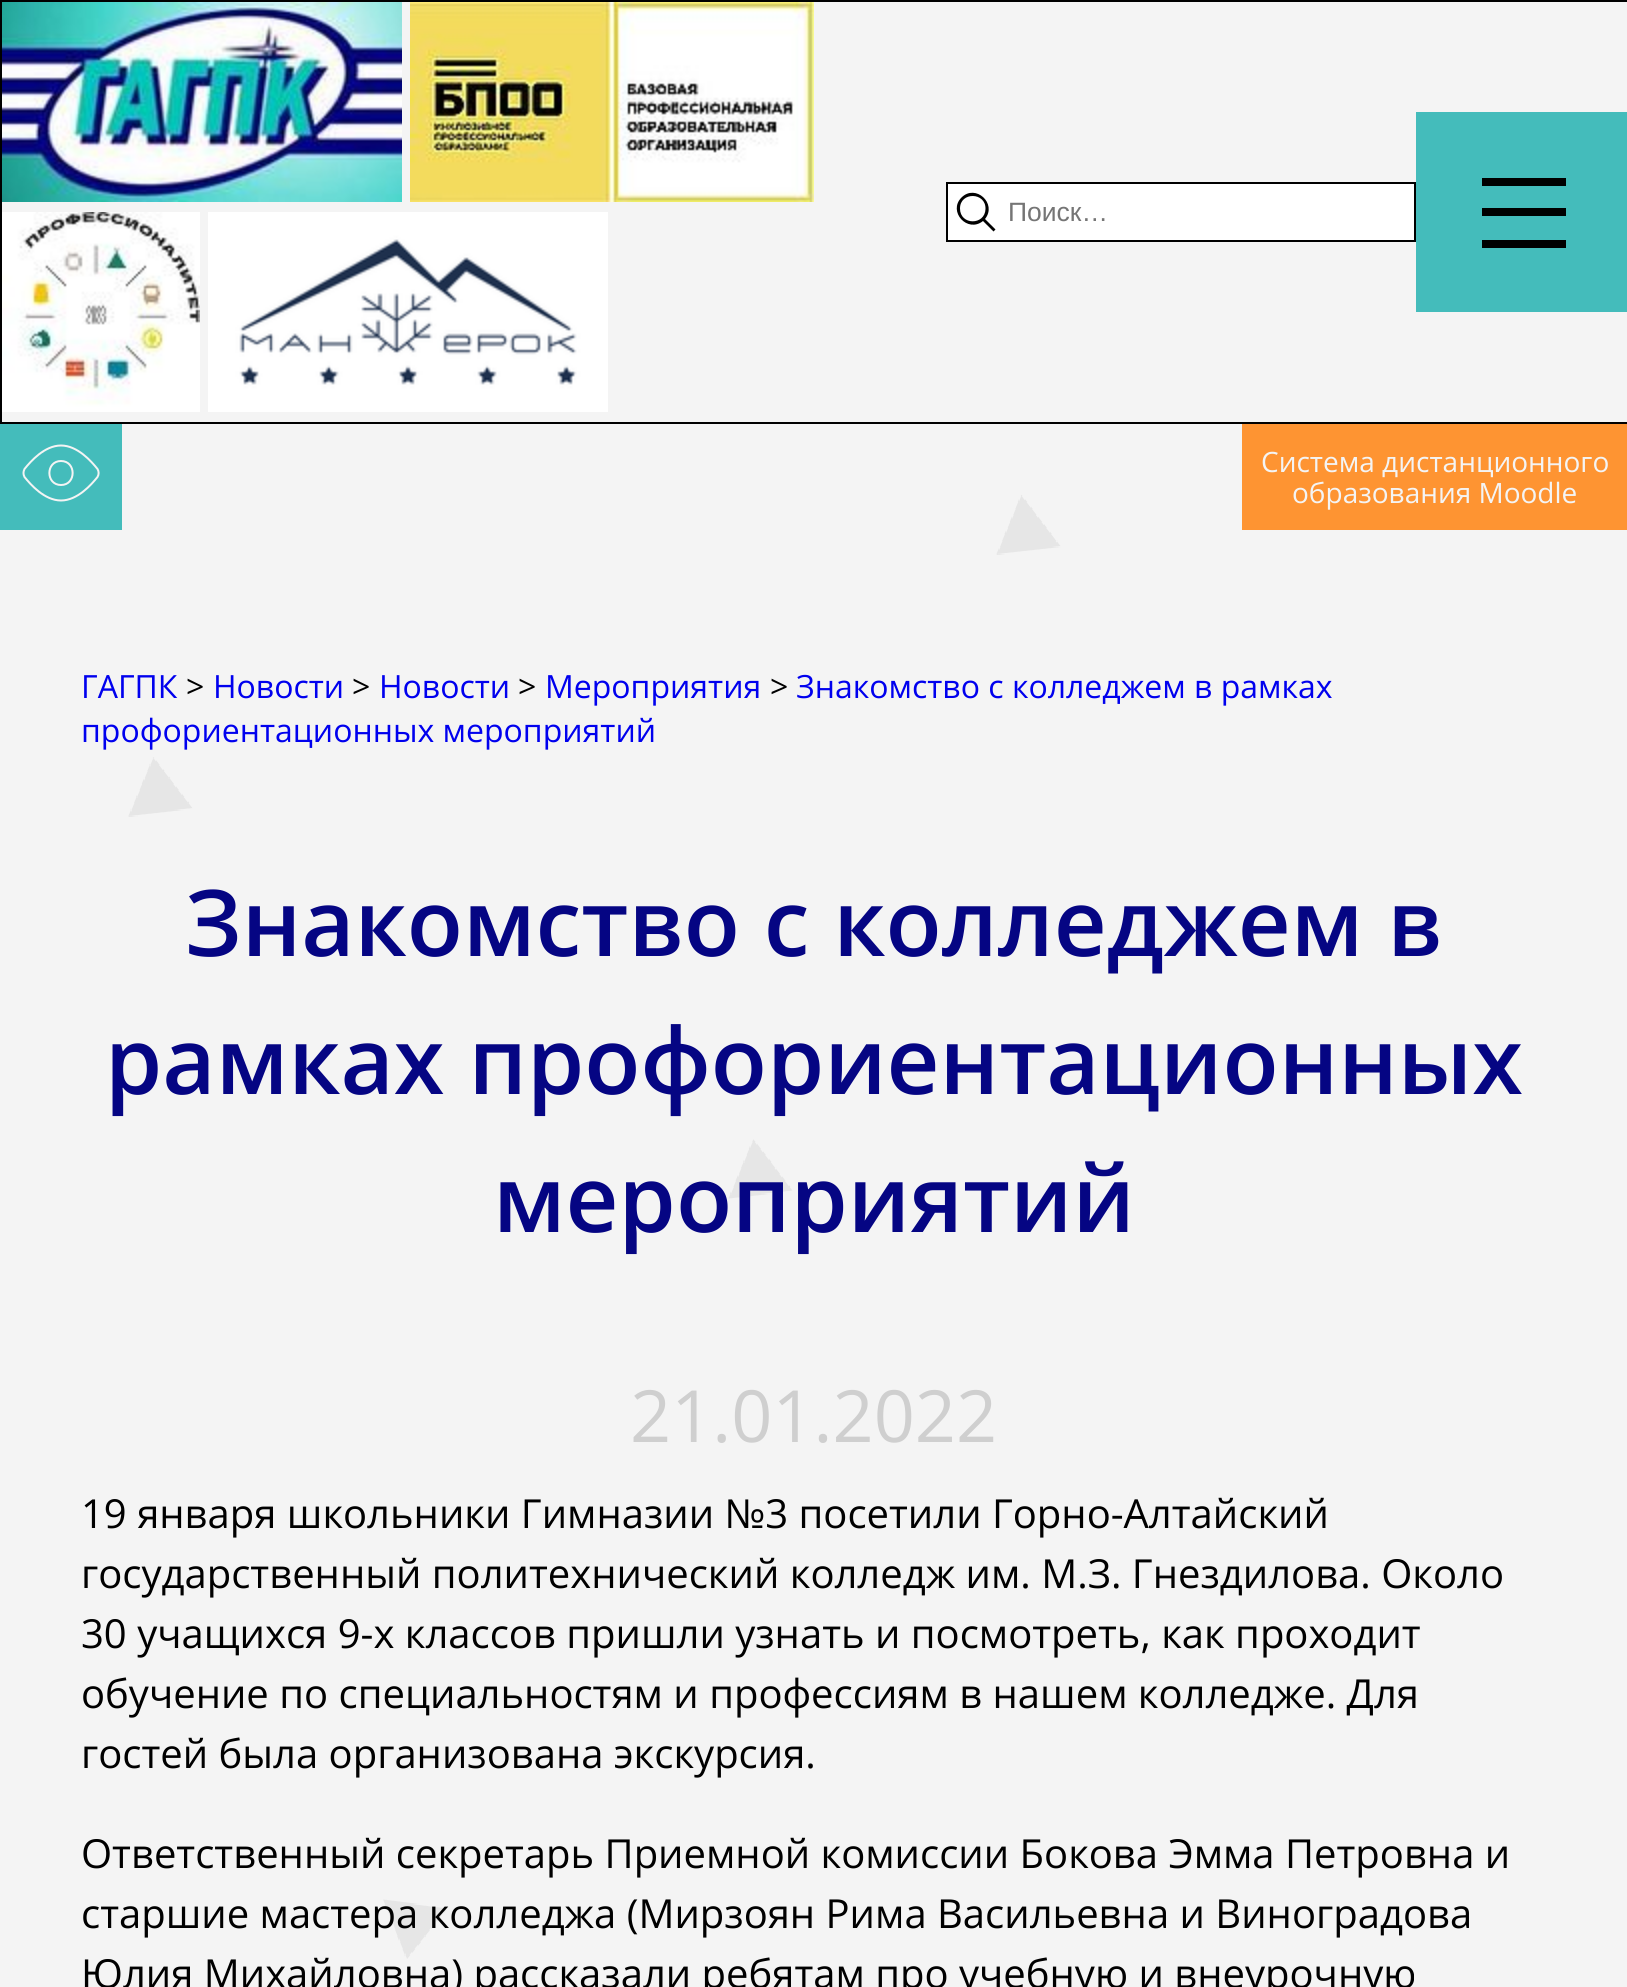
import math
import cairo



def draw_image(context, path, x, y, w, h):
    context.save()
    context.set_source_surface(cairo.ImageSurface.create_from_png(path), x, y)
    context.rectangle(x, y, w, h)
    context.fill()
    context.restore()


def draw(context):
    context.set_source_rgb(1, 1, 1)
    context.paint()
    draw_image(context, "images/1.png", 0, 424, 1627, 1563)
    context.set_source_rgb(244 / 255, 244 / 255, 244 / 255)
    context.rectangle(1, 1, 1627, 422)
    context.fill_preserve()
    context.set_source_rgb(0, 0, 0)
    context.stroke()
    draw_image(context, "images/2.png", 2, 2, 400, 200)
    draw_image(context, "images/3.png", 410, 2, 404, 200)
    draw_image(context, "images/4.png", 2, 212, 198, 200)
    draw_image(context, "images/5.png", 208, 212, 400, 200)
    context.set_source_rgb(1, 1, 1)
    context.rectangle(947, 183, 468, 58)
    context.fill_preserve()
    context.set_source_rgb(0, 0, 0)
    context.stroke()
    context.new_path()
    context.move_to(995.5, 229.5)
    context.line_to(985, 219)
    context.curve_to(997.5, 203.5, 975.5, 183.5, 961.5, 197.5)
    context.curve_to(947.5, 211.5, 967.5, 233.5, 983, 221)
    context.line_to(993.5, 231.5)
    context.close_path()
    context.move_to(960, 208.5)
    context.curve_to(960, 191.5, 986, 192, 985.5, 209)
    context.curve_to(985, 225.5, 960, 225.5, 960, 208.5)
    context.close_path()
    context.fill()
    context.set_source_rgb(68 / 255, 188 / 255, 187 / 255)
    context.rectangle(1416, 112, 211, 200)
    context.fill()
    context.set_source_rgb(0, 0, 0)
    context.rectangle(1482, 178, 84, 8)
    context.fill()
    context.rectangle(1482, 208, 84, 8)
    context.fill()
    context.rectangle(1482, 240, 84, 8)
    context.fill()
    context.set_source_rgb(68 / 255, 188 / 255, 187 / 255)
    context.rectangle(0, 424, 122, 106)
    context.fill()
    context.new_path()
    context.move_to(97.5, 469)
    context.curve_to(99, 471.5, 99, 474.5, 97.5, 477)
    context.curve_to(91.5, 484.5, 77.5, 500.5, 61, 500.5)
    context.curve_to(44.5, 500.5, 30.5, 484.5, 24.5, 477)
    context.curve_to(24, 476, 23.5, 474.5, 23.5, 473)
    context.curve_to(23.5, 471.5, 24, 470, 24.5, 469)
    context.curve_to(30.5, 461.5, 44.5, 445.5, 61, 445.5)
    context.curve_to(77.5, 445.5, 91.5, 461.5, 97.5, 469)
    context.close_path()
    context.set_source_rgb(244 / 255, 244 / 255, 244 / 255)
    context.set_line_cap(cairo.LineCap.ROUND)
    context.set_line_join(cairo.LineJoin.ROUND)
    context.stroke()
    context.new_path()
    context.move_to(61, 485)
    context.curve_to(76.5, 485, 76.5, 461, 61, 461)
    context.curve_to(45.5, 461, 45.5, 485, 61, 485)
    context.close_path()
    context.stroke()
    context.set_source_rgb(254 / 255, 148 / 255, 50 / 255)
    context.rectangle(1242, 424, 385, 106)
    context.fill()
    context.select_font_face("Liberation Sans")
    context.set_font_size(26.5)
    context.set_source_rgb(117 / 255, 117 / 255, 117 / 255)
    context.move_to(1008, 221)
    context.show_text("Поиск…")
    context.select_font_face("Open Sans")
    context.set_font_size(28)
    context.set_source_rgb(244 / 255, 244 / 255, 244 / 255)
    context.move_to(1261, 472)
    context.show_text("Система дистанционного")
    context.move_to(1292, 503)
    context.show_text("образования Moodle")
    context.set_font_size(32)
    context.set_source_rgb(0, 0, 238 / 255)
    context.move_to(81, 698)
    context.show_text("ГАГПК")
    context.set_source_rgb(0, 0, 0)
    context.move_to(186, 698)
    context.show_text(">")
    context.set_source_rgb(0, 0, 238 / 255)
    context.move_to(213, 698)
    context.show_text("Новости")
    context.set_source_rgb(0, 0, 0)
    context.move_to(352, 698)
    context.show_text(">")
    context.set_source_rgb(0, 0, 238 / 255)
    context.move_to(379, 698)
    context.show_text("Новости")
    context.set_source_rgb(0, 0, 0)
    context.move_to(518, 698)
    context.show_text(">")
    context.set_source_rgb(0, 0, 238 / 255)
    context.move_to(545, 698)
    context.show_text("Мероприятия")
    context.set_source_rgb(0, 0, 0)
    context.move_to(770, 698)
    context.show_text(">")
    context.set_source_rgb(0, 0, 238 / 255)
    context.move_to(796, 698)
    context.show_text("Знакомство с колледжем в рамках")
    context.move_to(81, 742)
    context.show_text("профориентационных мероприятий")
    context.select_font_face("Open Sans SemiBold")
    context.set_font_size(92)
    context.set_source_rgb(5 / 255, 5 / 255, 131 / 255)
    context.move_to(185, 956)
    context.show_text("Знакомство с колледжем в")
    context.move_to(105, 1094)
    context.show_text("рамках профориентационных")
    context.move_to(493, 1232)
    context.show_text("мероприятий")
    context.select_font_face("Open Sans")
    context.set_font_size(72)
    context.set_source_rgb(207 / 255, 207 / 255, 207 / 255)
    context.move_to(630, 1442)
    context.show_text("21.01.2022")
    context.set_font_size(40)
    context.set_source_rgb(0, 0, 0)
    context.move_to(81, 1528)
    context.show_text("19 января школьники Гимназии №3 посетили Горно-Алтайский")
    context.move_to(81, 1588)
    context.show_text("государственный политехнический колледж им. М.З. Гнездилова. Около")
    context.move_to(81, 1648)
    context.show_text("30 учащихся 9-х классов пришли узнать и посмотреть, как проходит")
    context.move_to(81, 1708)
    context.show_text("обучение по специальностям и профессиям в нашем колледже. Для")
    context.move_to(81, 1768)
    context.show_text("гостей была организована экскурсия.")
    context.move_to(81, 1868)
    context.show_text("Ответственный секретарь Приемной комиссии Бокова Эмма Петровна и")
    context.move_to(81, 1928)
    context.show_text("старшие мастера колледжа (Мирзоян Рима Васильевна и Виноградова")
    context.move_to(81, 1988)
    context.show_text("Юлия Михайловна) рассказали ребятам про учебную и внеурочную")


surface = cairo.ImageSurface(cairo.Format.RGB24, 1627, 1987)
context = cairo.Context(surface)
options = cairo.FontOptions()
options.set_hint_metrics(cairo.HintMetrics.OFF)
options.set_hint_style(cairo.HintStyle.NONE)
context.set_font_options(options)
context.set_miter_limit(4)
draw(context)
surface.write_to_png("out.png")
